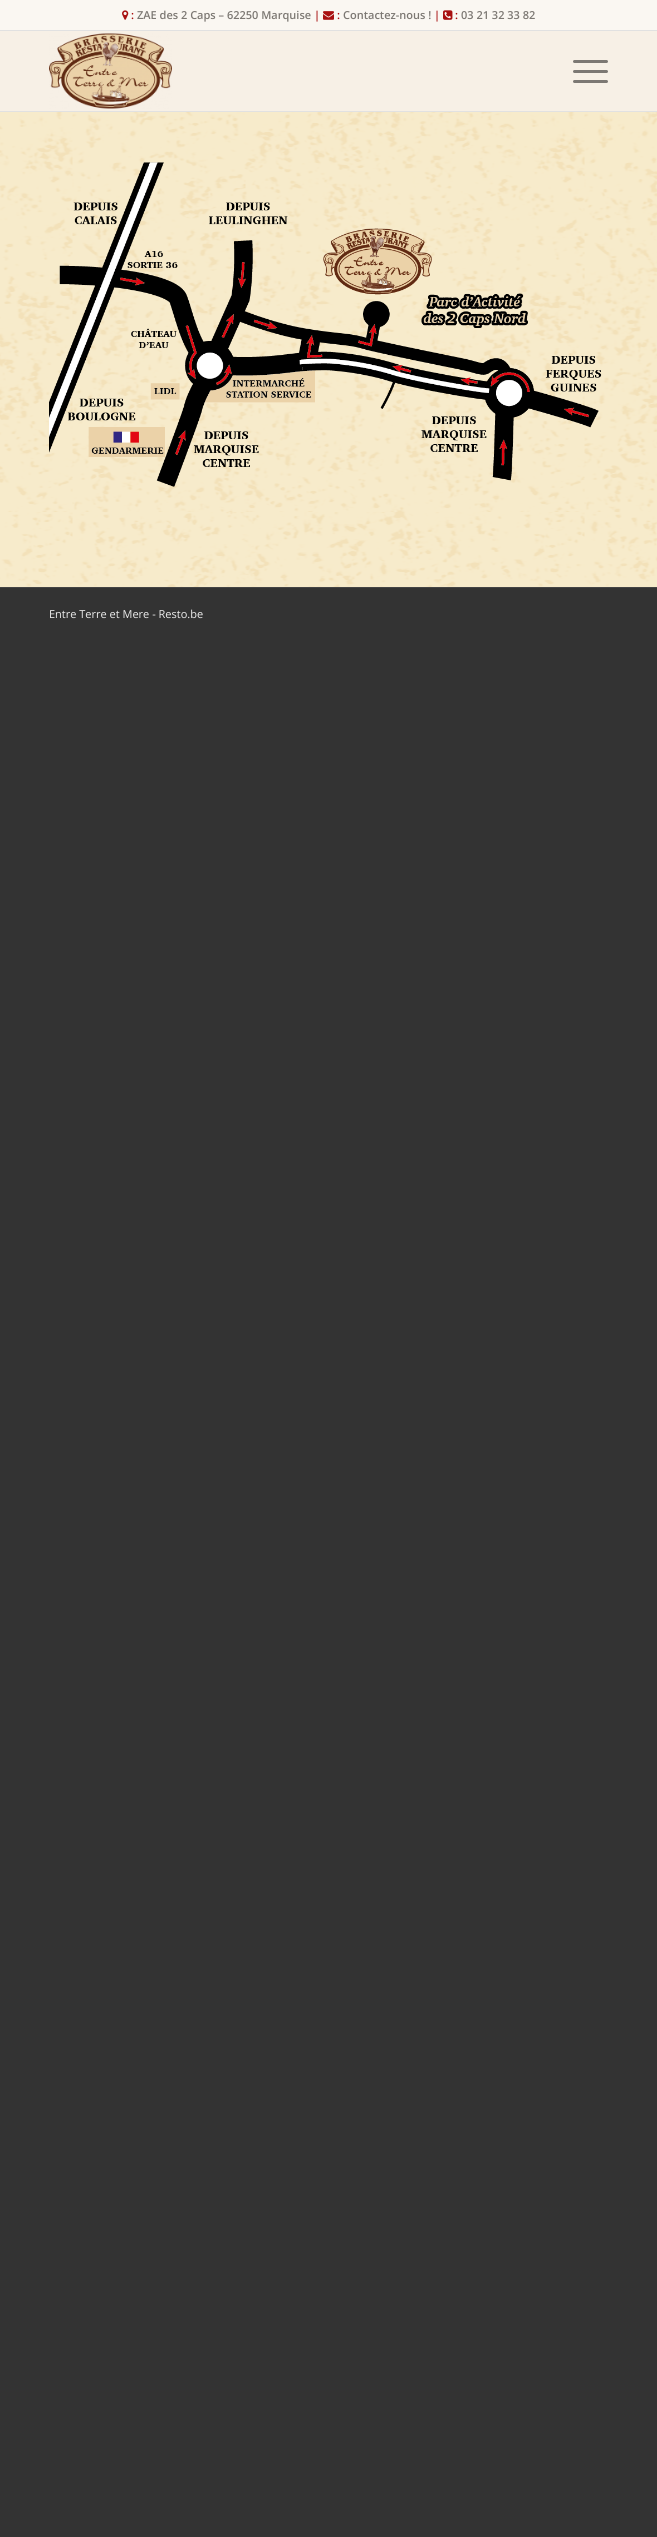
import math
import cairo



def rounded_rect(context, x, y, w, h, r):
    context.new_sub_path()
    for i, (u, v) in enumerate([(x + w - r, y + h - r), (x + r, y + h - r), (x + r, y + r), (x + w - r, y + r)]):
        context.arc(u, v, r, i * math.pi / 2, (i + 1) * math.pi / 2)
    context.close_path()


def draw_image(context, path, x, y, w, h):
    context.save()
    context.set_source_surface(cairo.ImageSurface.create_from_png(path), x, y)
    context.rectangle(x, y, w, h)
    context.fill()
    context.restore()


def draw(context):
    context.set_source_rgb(51 / 255, 51 / 255, 51 / 255)
    context.paint()
    context.set_source_rgb(250 / 255, 247 / 255, 242 / 255)
    context.rectangle(0, 0, 657, 30)
    context.fill()
    context.set_source_rgb(225 / 255, 225 / 255, 225 / 255)
    context.rectangle(0, 30, 657, 1)
    context.fill()
    draw_image(context, "images/1.png", 122, 10, 7, 10)
    draw_image(context, "images/2.png", 323, 11, 11, 9)
    draw_image(context, "images/3.png", 443, 10, 10, 10)
    context.set_source_rgb(247 / 255, 240 / 255, 230 / 255)
    context.rectangle(0, 31, 657, 80)
    context.fill()
    context.set_source_rgb(225 / 255, 225 / 255, 225 / 255)
    context.rectangle(0, 111, 657, 1)
    context.fill()
    draw_image(context, "images/4.png", 49, 33, 123, 76)
    context.set_source_rgb(124 / 255, 120 / 255, 115 / 255)
    rounded_rect(context, 573, 70, 35, 3, 1.5)
    context.fill()
    rounded_rect(context, 573, 60, 35, 3, 1.5)
    context.fill()
    rounded_rect(context, 573, 80, 35, 3, 1.5)
    context.fill()
    draw_image(context, "images/5.png", 0, 112, 657, 475)
    draw_image(context, "images/6.png", 49, 162, 553, 325)
    context.set_source_rgb(68 / 255, 68 / 255, 68 / 255)
    context.rectangle(0, 587, 657, 1)
    context.fill()
    context.select_font_face("Open Sans SemiBold")
    context.set_font_size(11)
    context.set_source_rgb(168 / 255, 16 / 255, 16 / 255)
    context.move_to(131, 19)
    context.show_text(":")
    context.set_source_rgb(124 / 255, 120 / 255, 115 / 255)
    context.move_to(137, 19)
    context.show_text("ZAE des 2 Caps – 62250 Marquise")
    context.set_source_rgb(168 / 255, 16 / 255, 16 / 255)
    context.move_to(314, 19)
    context.show_text("|")
    context.move_to(337, 19)
    context.show_text(":")
    context.set_source_rgb(124 / 255, 120 / 255, 115 / 255)
    context.move_to(343, 19)
    context.show_text("Contactez-nous !")
    context.set_source_rgb(168 / 255, 16 / 255, 16 / 255)
    context.move_to(434, 19)
    context.show_text("|")
    context.move_to(455, 19)
    context.show_text(":")
    context.set_source_rgb(124 / 255, 120 / 255, 115 / 255)
    context.move_to(461, 19)
    context.show_text("03 21 32 33 82")
    context.select_font_face("Open Sans")
    context.set_source_rgb(238 / 255, 238 / 255, 238 / 255)
    context.move_to(49, 618)
    context.show_text("Entre Terre et Mere - Resto.be")


surface = cairo.ImageSurface(cairo.Format.RGB24, 657, 2537)
context = cairo.Context(surface)
options = cairo.FontOptions()
options.set_hint_metrics(cairo.HintMetrics.OFF)
options.set_hint_style(cairo.HintStyle.NONE)
context.set_font_options(options)
context.set_miter_limit(4)
draw(context)
surface.write_to_png("out.png")
